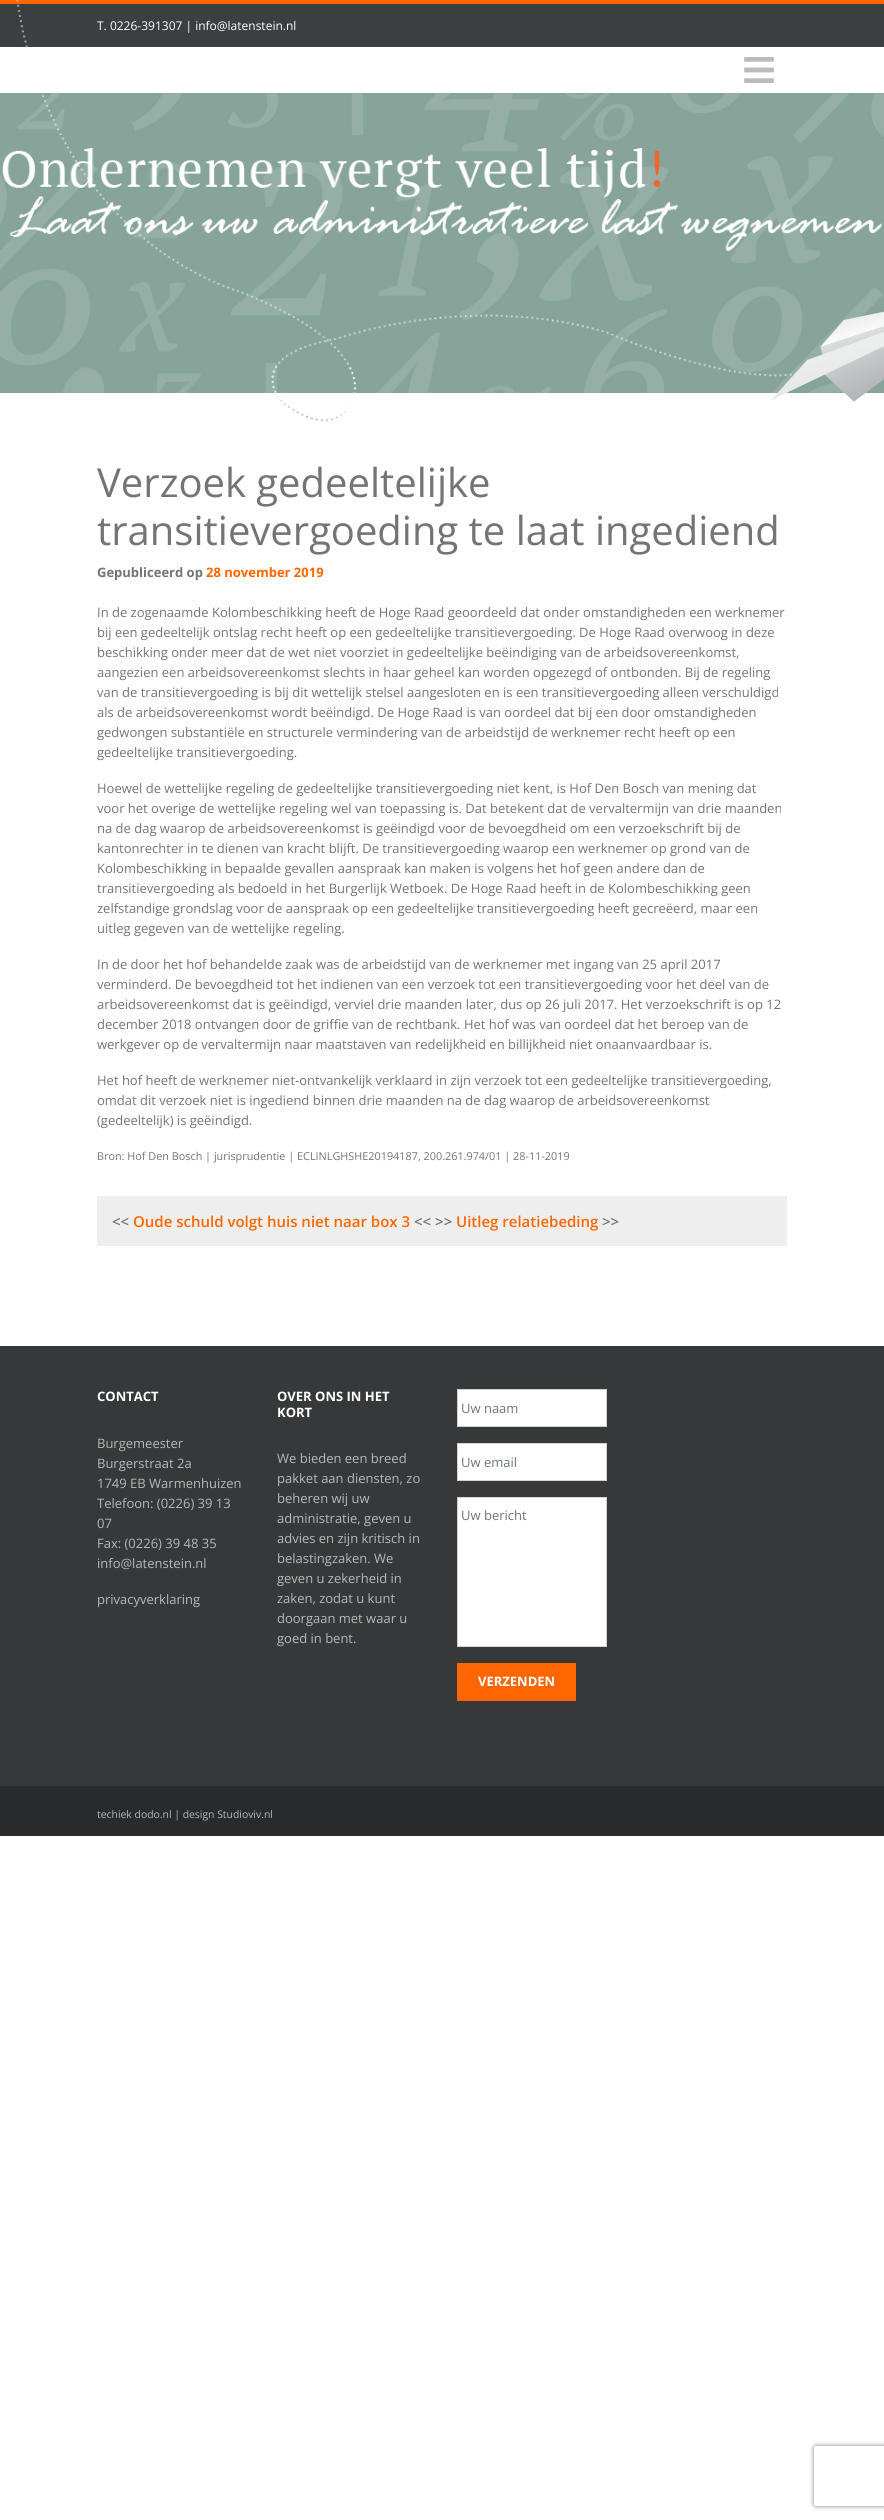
import math
import cairo



def rounded_rect(context, x, y, w, h, r):
    context.new_sub_path()
    for i, (u, v) in enumerate([(x + w - r, y + h - r), (x + r, y + h - r), (x + r, y + r), (x + w - r, y + r)]):
        context.arc(u, v, r, i * math.pi / 2, (i + 1) * math.pi / 2)
    context.close_path()


def draw_shadow(context, x, y, w, h, r, blur, alpha):
    context.push_group_with_content(cairo.Content.ALPHA)
    context.set_operator(cairo.Operator.SOURCE)
    for i in range(15, -16, -2):
        e = blur * i / 6
        if min(w, h) + 2 * e > 0:
            context.set_source_rgba(0, 0, 0, alpha * math.erfc((i - 1) / 8.5) / 2)
            rounded_rect(context, x - e, y - e, w + 2 * e, h + 2 * e, max(0, min(r + e + blur * .6, min(w, h) / 2 + e)))
            context.fill()
    context.mask(context.pop_group())


def draw_image(context, path, x, y, w, h):
    context.save()
    context.set_source_surface(cairo.ImageSurface.create_from_png(path), x, y)
    context.rectangle(x, y, w, h)
    context.fill()
    context.restore()


def draw(context):
    context.set_source_rgb(1, 1, 1)
    context.paint()
    draw_image(context, "images/1.png", 0, 93, 884, 300)
    draw_image(context, "images/2.png", 2, 148, 881, 104)
    context.set_source_rgb(59 / 255, 63 / 255, 64 / 255)
    context.rectangle(0, 4, 884, 43)
    context.fill()
    context.set_source_rgb(1, 102 / 255, 0)
    context.rectangle(0, 0, 884, 4)
    context.fill()
    draw_image(context, "images/4.png", 744, 57, 30, 26)
    context.set_source_rgb(238 / 255, 238 / 255, 238 / 255)
    context.rectangle(97, 1196, 690, 50)
    context.fill()
    context.set_source_rgb(54 / 255, 56 / 255, 57 / 255)
    context.rectangle(0, 1346, 884, 440)
    context.fill()
    context.set_source_rgb(1, 1, 1)
    context.rectangle(457.5, 1389.5, 149, 37)
    context.fill_preserve()
    context.set_source_rgb(210 / 255, 210 / 255, 210 / 255)
    context.set_line_width(1)
    context.stroke()
    context.set_source_rgb(1, 1, 1)
    context.rectangle(457.5, 1443.5, 149, 37)
    context.fill_preserve()
    context.set_source_rgb(210 / 255, 210 / 255, 210 / 255)
    context.stroke()
    context.set_source_rgb(1, 1, 1)
    context.rectangle(457.5, 1497.5, 149, 149)
    context.fill_preserve()
    context.set_source_rgb(210 / 255, 210 / 255, 210 / 255)
    context.stroke()
    context.set_source_rgb(1, 102 / 255, 0)
    context.rectangle(457.5, 1663.5, 118, 37)
    context.fill_preserve()
    context.stroke()
    context.set_source_rgb(40 / 255, 42 / 255, 43 / 255)
    context.rectangle(0, 1786, 884, 50)
    context.fill()
    context.save()
    context.set_fill_rule(cairo.FillRule.EVEN_ODD)
    context.new_path()
    context.move_to(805, 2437)
    context.line_to(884, 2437)
    context.line_to(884, 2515)
    context.line_to(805, 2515)
    context.close_path()
    context.move_to(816, 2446)
    context.line_to(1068, 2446)
    context.curve_to(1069, 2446, 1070, 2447, 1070, 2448)
    context.line_to(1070, 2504)
    context.curve_to(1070, 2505, 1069, 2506, 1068, 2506)
    context.line_to(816, 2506)
    context.curve_to(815, 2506, 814, 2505, 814, 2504)
    context.line_to(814, 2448)
    context.curve_to(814, 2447, 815, 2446, 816, 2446)
    context.close_path()
    context.clip()
    context.set_source_rgb(128 / 255, 128 / 255, 128 / 255)
    draw_shadow(context, 814, 2446, 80, 60, 2, 2.5, 1)
    context.restore()
    context.select_font_face("Open Sans")
    context.set_font_size(12)
    context.set_source_rgb(1, 1, 1)
    context.move_to(97, 30)
    context.show_text("T. 0226-391307 | info@latenstein.nl")
    draw_image(context, "images/3.png", 16, 0, 868, 422)
    context.set_font_size(40)
    context.set_source_rgb(116 / 255, 116 / 255, 116 / 255)
    context.move_to(97, 497)
    context.show_text("Verzoek gedeeltelijke")
    context.move_to(97, 545)
    context.show_text("transitievergoeding te laat ingediend")
    context.select_font_face("Open Sans", cairo.FontSlant.NORMAL, cairo.FontWeight.BOLD)
    context.set_font_size(13)
    context.move_to(97, 577)
    context.show_text("Gepubliceerd op")
    context.set_source_rgb(1, 102 / 255, 0)
    context.move_to(206, 577)
    context.show_text("28 november 2019")
    context.select_font_face("Open Sans")
    context.set_source_rgb(116 / 255, 116 / 255, 116 / 255)
    context.move_to(97, 617)
    context.show_text("In de zogenaamde Kolombeschikking heeft de Hoge Raad geoordeeld dat onder omstandigheden een werknemer")
    context.move_to(97, 637)
    context.show_text("bij een gedeeltelijk ontslag recht heeft op een gedeeltelijke transitievergoeding. De Hoge Raad overwoog in deze")
    context.move_to(97, 657)
    context.show_text("beschikking onder meer dat de wet niet voorziet in gedeeltelijke beëindiging van de arbeidsovereenkomst,")
    context.move_to(97, 677)
    context.show_text("aangezien een arbeidsovereenkomst slechts in haar geheel kan worden opgezegd of ontbonden. Bij de regeling")
    context.move_to(97, 697)
    context.show_text("van de transitievergoeding is bij dit wettelijk stelsel aangesloten en is een transitievergoeding alleen verschuldigd")
    context.move_to(97, 717)
    context.show_text("als de arbeidsovereenkomst wordt beëindigd. De Hoge Raad is van oordeel dat bij een door omstandigheden")
    context.move_to(97, 737)
    context.show_text("gedwongen substantiële en structurele vermindering van de arbeidstijd de werknemer recht heeft op een")
    context.move_to(97, 757)
    context.show_text("gedeeltelijke transitievergoeding.")
    context.move_to(97, 793)
    context.show_text("Hoewel de wettelijke regeling de gedeeltelijke transitievergoeding niet kent, is Hof Den Bosch van mening dat")
    context.move_to(97, 813)
    context.show_text("voor het overige de wettelijke regeling wel van toepassing is. Dat betekent dat de vervaltermijn van drie maanden")
    context.move_to(97, 833)
    context.show_text("na de dag waarop de arbeidsovereenkomst is geëindigd voor de bevoegdheid om een verzoekschrift bij de")
    context.move_to(97, 853)
    context.show_text("kantonrechter in te dienen van kracht blijft. De transitievergoeding waarop een werknemer op grond van de")
    context.move_to(97, 873)
    context.show_text("Kolombeschikking in bepaalde gevallen aanspraak kan maken is volgens het hof geen andere dan de")
    context.move_to(97, 893)
    context.show_text("transitievergoeding als bedoeld in het Burgerlijk Wetboek. De Hoge Raad heeft in de Kolombeschikking geen")
    context.move_to(97, 913)
    context.show_text("zelfstandige grondslag voor de aanspraak op een gedeeltelijke transitievergoeding heeft gecreëerd, maar een")
    context.move_to(97, 933)
    context.show_text("uitleg gegeven van de wettelijke regeling.")
    context.move_to(97, 969)
    context.show_text("In de door het hof behandelde zaak was de arbeidstijd van de werknemer met ingang van 25 april 2017")
    context.move_to(97, 989)
    context.show_text("verminderd. De bevoegdheid tot het indienen van een verzoek tot een transitievergoeding voor het deel van de")
    context.move_to(97, 1009)
    context.show_text("arbeidsovereenkomst dat is geëindigd, verviel drie maanden later, dus op 26 juli 2017. Het verzoekschrift is op 12")
    context.move_to(97, 1029)
    context.show_text("december 2018 ontvangen door de griffie van de rechtbank. Het hof was van oordeel dat het beroep van de")
    context.move_to(97, 1049)
    context.show_text("werkgever op de vervaltermijn naar maatstaven van redelijkheid en billijkheid niet onaanvaardbaar is.")
    context.move_to(97, 1085)
    context.show_text("Het hof heeft de werknemer niet-ontvankelijk verklaard in zijn verzoek tot een gedeeltelijke transitievergoeding,")
    context.move_to(97, 1105)
    context.show_text("omdat dit verzoek niet is ingediend binnen drie maanden na de dag waarop de arbeidsovereenkomst")
    context.move_to(97, 1125)
    context.show_text("(gedeeltelijk) is geëindigd.")
    context.set_font_size(10.85)
    context.move_to(97, 1160)
    context.show_text("Bron: Hof Den Bosch | jurisprudentie | ECLINLGHSHE20194187, 200.261.974/01 | 28-11-2019")
    context.select_font_face("Open Sans SemiBold")
    context.set_font_size(15)
    context.move_to(112, 1227)
    context.show_text("<<")
    context.set_source_rgb(1, 102 / 255, 0)
    context.move_to(133, 1227)
    context.show_text("Oude schuld volgt huis niet naar box 3")
    context.set_source_rgb(116 / 255, 116 / 255, 116 / 255)
    context.move_to(414, 1227)
    context.show_text("<< >>")
    context.set_source_rgb(1, 102 / 255, 0)
    context.move_to(456, 1227)
    context.show_text("Uitleg relatiebeding")
    context.set_source_rgb(116 / 255, 116 / 255, 116 / 255)
    context.move_to(602, 1227)
    context.show_text(">>")
    context.select_font_face("Open Sans", cairo.FontSlant.NORMAL, cairo.FontWeight.BOLD)
    context.set_font_size(13)
    context.set_source_rgb(1, 1, 1)
    context.move_to(97, 1401)
    context.show_text("CONTACT")
    context.select_font_face("Open Sans")
    context.set_source_rgb(184 / 255, 184 / 255, 184 / 255)
    context.move_to(97, 1448)
    context.show_text("Burgemeester")
    context.move_to(97, 1468)
    context.show_text("Burgerstraat 2a")
    context.move_to(97, 1488)
    context.show_text("1749 EB Warmenhuizen")
    context.move_to(97, 1508)
    context.show_text("Telefoon: (0226) 39 13")
    context.move_to(97, 1528)
    context.show_text("07")
    context.move_to(97, 1548)
    context.show_text("Fax: (0226) 39 48 35")
    context.move_to(97, 1568)
    context.show_text("info@latenstein.nl")
    context.move_to(97, 1604)
    context.show_text("privacyverklaring")
    context.select_font_face("Open Sans", cairo.FontSlant.NORMAL, cairo.FontWeight.BOLD)
    context.set_source_rgb(1, 1, 1)
    context.move_to(277, 1401)
    context.show_text("OVER ONS IN HET")
    context.move_to(277, 1417)
    context.show_text("KORT")
    context.select_font_face("Open Sans")
    context.set_source_rgb(184 / 255, 184 / 255, 184 / 255)
    context.move_to(277, 1463)
    context.show_text("We bieden een breed")
    context.move_to(277, 1483)
    context.show_text("pakket aan diensten, zo")
    context.move_to(277, 1503)
    context.show_text("beheren wij uw")
    context.move_to(277, 1523)
    context.show_text("administratie, geven u")
    context.move_to(277, 1543)
    context.show_text("advies en zijn kritisch in")
    context.move_to(277, 1563)
    context.show_text("belastingzaken. We")
    context.move_to(277, 1583)
    context.show_text("geven u zekerheid in")
    context.move_to(277, 1603)
    context.show_text("zaken, zodat u kunt")
    context.move_to(277, 1623)
    context.show_text("doorgaan met waar u")
    context.move_to(277, 1643)
    context.show_text("goed in bent.")
    context.set_source_rgb(108 / 255, 117 / 255, 125 / 255)
    context.move_to(461, 1413)
    context.show_text("Uw naam")
    context.move_to(461, 1467)
    context.show_text("Uw email")
    context.move_to(461, 1520)
    context.show_text("Uw bericht")
    context.select_font_face("Open Sans", cairo.FontSlant.NORMAL, cairo.FontWeight.BOLD)
    context.set_source_rgb(1, 1, 1)
    context.move_to(478, 1686)
    context.show_text("VERZENDEN")
    context.select_font_face("Open Sans")
    context.set_font_size(10.4)
    context.set_source_rgb(184 / 255, 184 / 255, 184 / 255)
    context.move_to(97, 1818)
    context.show_text("techiek dodo.nl | design Studioviv.nl")


surface = cairo.ImageSurface(cairo.Format.RGB24, 884, 2520)
context = cairo.Context(surface)
options = cairo.FontOptions()
options.set_hint_metrics(cairo.HintMetrics.OFF)
options.set_hint_style(cairo.HintStyle.NONE)
context.set_font_options(options)
context.set_miter_limit(4)
draw(context)
surface.write_to_png("out.png")
